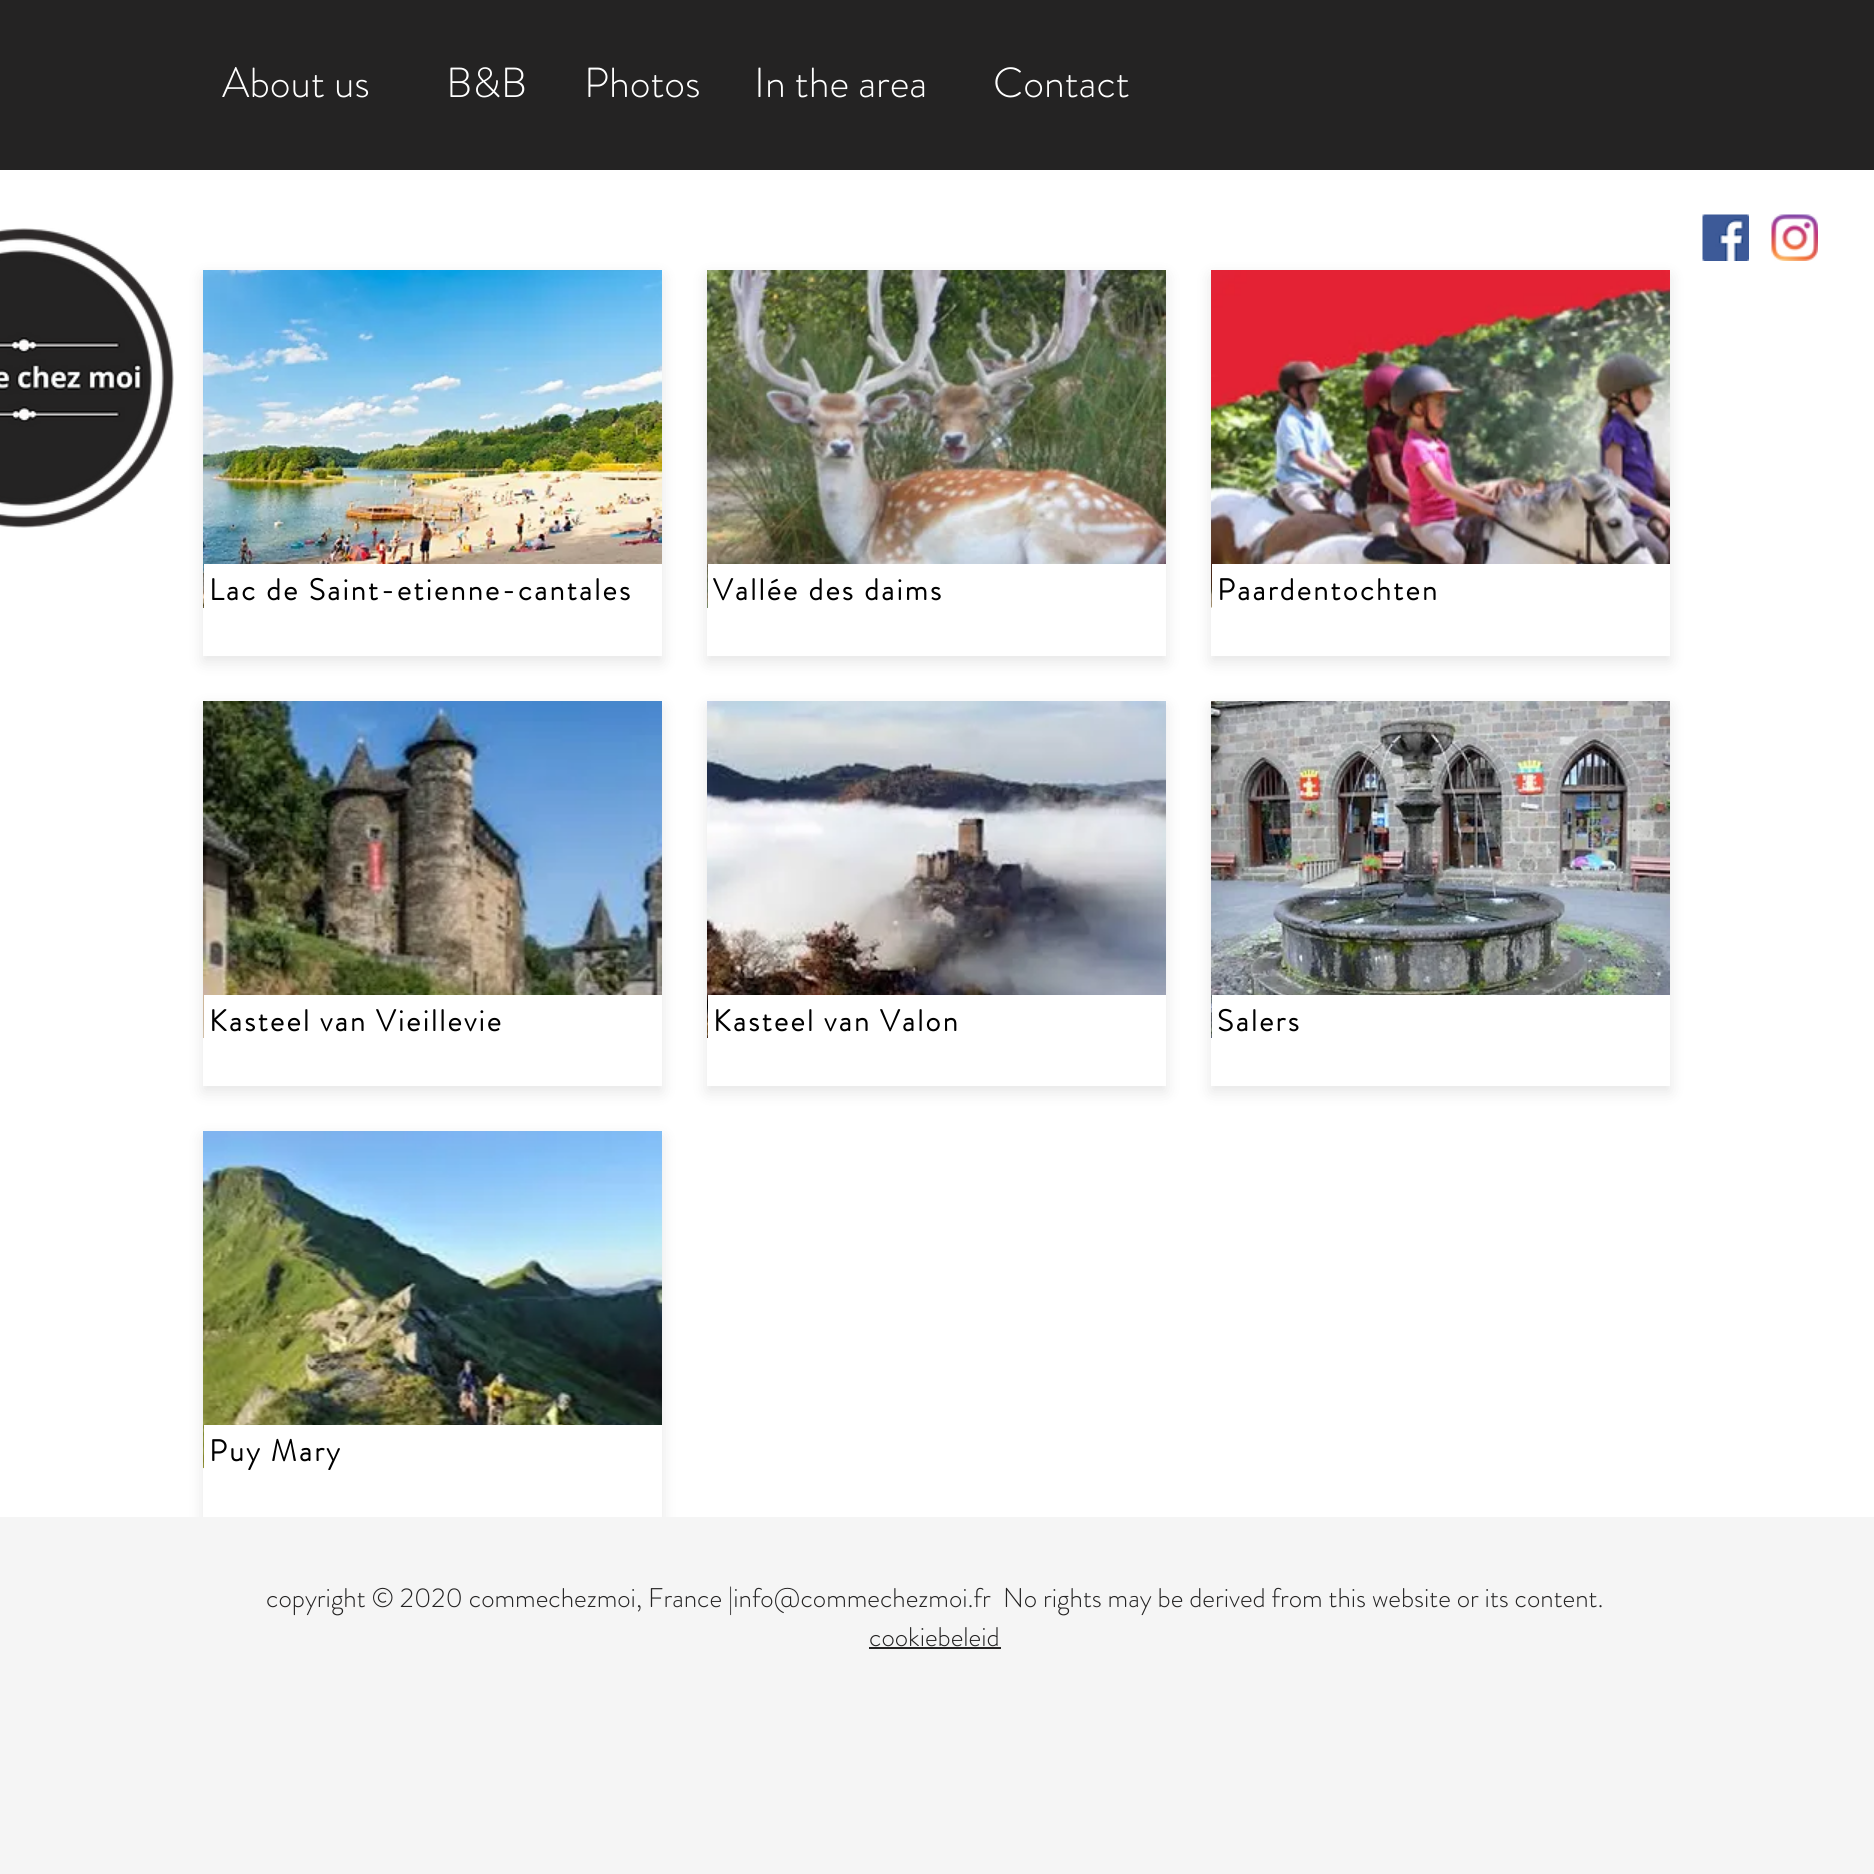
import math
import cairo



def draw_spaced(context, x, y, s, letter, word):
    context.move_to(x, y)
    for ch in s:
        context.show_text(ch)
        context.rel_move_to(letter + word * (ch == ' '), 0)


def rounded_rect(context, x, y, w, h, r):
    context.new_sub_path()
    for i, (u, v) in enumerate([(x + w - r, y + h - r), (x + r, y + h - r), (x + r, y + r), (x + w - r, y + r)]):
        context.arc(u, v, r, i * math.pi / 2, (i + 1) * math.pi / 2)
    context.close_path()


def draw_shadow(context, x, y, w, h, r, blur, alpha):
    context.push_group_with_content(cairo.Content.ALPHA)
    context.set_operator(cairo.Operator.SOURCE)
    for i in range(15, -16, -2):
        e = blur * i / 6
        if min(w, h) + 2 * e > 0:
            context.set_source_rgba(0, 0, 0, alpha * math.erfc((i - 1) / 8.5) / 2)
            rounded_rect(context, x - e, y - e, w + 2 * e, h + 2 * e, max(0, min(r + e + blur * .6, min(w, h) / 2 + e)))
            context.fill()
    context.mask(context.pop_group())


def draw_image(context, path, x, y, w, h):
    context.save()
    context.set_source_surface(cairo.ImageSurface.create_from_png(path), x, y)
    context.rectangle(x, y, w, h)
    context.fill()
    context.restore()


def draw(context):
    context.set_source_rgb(1, 1, 1)
    context.paint()
    context.set_source_rgb(36 / 255, 35 / 255, 35 / 255)
    context.rectangle(0, 0, 1874, 170)
    context.fill()
    draw_image(context, "images/1.png", 1702, 214, 47, 47)
    draw_image(context, "images/2.png", 1771, 214, 47, 47)
    draw_image(context, "images/3.png", 0, 228, 174, 300)
    context.set_source_rgb(0, 0, 0)
    draw_shadow(context, 203, 276, 459, 386, 0, 7.5, 0.1)
    draw_image(context, "images/4.png", 203, 270, 459, 338)
    context.set_source_rgb(1, 1, 1)
    context.rectangle(204, 564, 458, 44)
    context.fill()
    context.rectangle(203, 608, 459, 48)
    context.fill()
    context.set_source_rgb(0, 0, 0)
    draw_shadow(context, 203, 707, 459, 385, 0, 7.5, 0.1)
    draw_image(context, "images/5.png", 203, 701, 459, 337)
    context.set_source_rgb(1, 1, 1)
    context.rectangle(204, 995, 458, 43)
    context.fill()
    context.rectangle(203, 1038, 459, 48)
    context.fill()
    context.set_source_rgb(0, 0, 0)
    draw_shadow(context, 203, 1137, 459, 386, 0, 7.5, 0.1)
    context.set_source_rgb(1, 1, 1)
    context.rectangle(203, 1468, 459, 49)
    context.fill()
    draw_image(context, "images/6.png", 203, 1131, 459, 338)
    context.rectangle(204, 1425, 458, 44)
    context.fill()
    context.set_source_rgb(0, 0, 0)
    draw_shadow(context, 707, 276, 459, 386, 0, 7.5, 0.1)
    draw_image(context, "images/7.png", 707, 270, 459, 338)
    context.set_source_rgb(1, 1, 1)
    context.rectangle(708, 564, 458, 44)
    context.fill()
    context.rectangle(707, 608, 459, 48)
    context.fill()
    context.set_source_rgb(0, 0, 0)
    draw_shadow(context, 707, 707, 459, 385, 0, 7.5, 0.1)
    draw_image(context, "images/8.png", 707, 701, 459, 337)
    context.set_source_rgb(1, 1, 1)
    context.rectangle(708, 995, 458, 43)
    context.fill()
    context.rectangle(707, 1038, 459, 48)
    context.fill()
    context.set_source_rgb(0, 0, 0)
    draw_shadow(context, 1211, 276, 459, 386, 0, 7.5, 0.1)
    context.set_source_rgb(1, 1, 1)
    context.rectangle(1211, 606, 459, 50)
    context.fill()
    draw_image(context, "images/9.png", 1211, 270, 459, 338)
    context.rectangle(1212, 564, 458, 44)
    context.fill()
    context.set_source_rgb(0, 0, 0)
    draw_shadow(context, 1211, 707, 459, 385, 0, 7.5, 0.1)
    draw_image(context, "images/10.png", 1211, 701, 459, 337)
    context.set_source_rgb(1, 1, 1)
    context.rectangle(1212, 995, 458, 43)
    context.fill()
    context.rectangle(1211, 1038, 459, 48)
    context.fill()
    context.set_source_rgb(245 / 255, 245 / 255, 245 / 255)
    context.rectangle(0, 1517, 1874, 357)
    context.fill()
    context.set_source_rgb(36 / 255, 35 / 255, 35 / 255)
    context.rectangle(869, 1647, 132, 2)
    context.fill()
    context.select_font_face("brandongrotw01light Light")
    context.set_font_size(42)
    context.set_source_rgb(1, 1, 1)
    context.move_to(222, 97)
    context.show_text("About us")
    context.move_to(446, 97)
    context.show_text("B&B")
    context.move_to(584, 97)
    context.show_text("Photos")
    context.move_to(754, 97)
    context.show_text("In the area")
    context.move_to(993, 97)
    context.show_text("Contact")
    context.select_font_face("brandongrotw01light", cairo.FontSlant.NORMAL, cairo.FontWeight.BOLD)
    context.set_font_size(30)
    context.set_source_rgb(0, 0, 0)
    draw_spaced(context, 209, 600, "Lac de Saint-etienne-cantales", 2.4, 0)
    draw_spaced(context, 209, 1031, "Kasteel van Vieillevie", 2.4, 0)
    draw_spaced(context, 209, 1461, "Puy Mary", 2.4, 0)
    draw_spaced(context, 713, 600, "Vallée des daims", 2.4, 0)
    draw_spaced(context, 713, 1031, "Kasteel van Valon", 2.4, 0)
    draw_spaced(context, 1217, 600, "Paardentochten", 2.4, 0)
    draw_spaced(context, 1217, 1031, "Salers", 2.4, 0)
    context.select_font_face("brandongrotw01light Light")
    context.set_font_size(27)
    context.set_source_rgb(36 / 255, 35 / 255, 35 / 255)
    context.move_to(266, 1607)
    context.show_text("copyright © 2020 commechezmoi, France |info@commechezmoi.fr")
    context.move_to(1003, 1607)
    context.show_text("No rights may be derived from this website or its content.")
    context.move_to(869, 1646)
    context.show_text("cookiebeleid")


surface = cairo.ImageSurface(cairo.Format.RGB24, 1874, 1874)
context = cairo.Context(surface)
options = cairo.FontOptions()
options.set_hint_metrics(cairo.HintMetrics.OFF)
options.set_hint_style(cairo.HintStyle.NONE)
context.set_font_options(options)
context.set_miter_limit(4)
draw(context)
surface.write_to_png("out.png")
